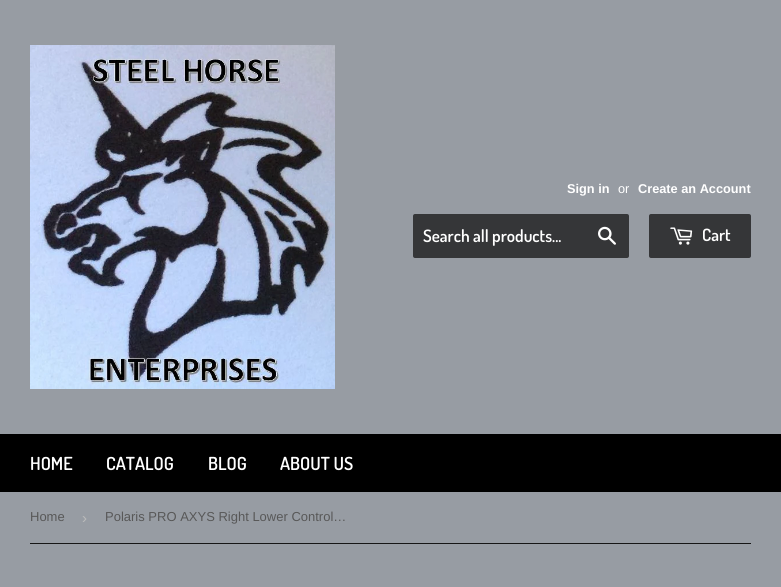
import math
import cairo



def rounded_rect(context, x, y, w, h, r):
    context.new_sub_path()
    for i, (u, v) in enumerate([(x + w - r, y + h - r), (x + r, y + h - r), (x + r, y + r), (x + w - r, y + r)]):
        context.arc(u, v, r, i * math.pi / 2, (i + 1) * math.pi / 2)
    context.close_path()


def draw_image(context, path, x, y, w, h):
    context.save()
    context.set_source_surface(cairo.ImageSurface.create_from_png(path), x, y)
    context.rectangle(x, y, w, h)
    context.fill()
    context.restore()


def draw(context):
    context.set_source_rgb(151 / 255, 156 / 255, 163 / 255)
    context.paint()
    draw_image(context, "images/1.png", 30, 45, 305, 344)
    context.set_source_rgb(53 / 255, 54 / 255, 56 / 255)
    rounded_rect(context, 413, 214, 216, 44, 2)
    context.fill()
    draw_image(context, "images/2.png", 598, 226, 18, 19)
    rounded_rect(context, 649, 214, 102, 44, 2)
    context.fill()
    draw_image(context, "images/3.png", 670, 227, 23, 18)
    context.set_source_rgb(0, 0, 0)
    context.rectangle(0, 434, 781, 58)
    context.fill()
    context.set_source_rgb(22 / 255, 22 / 255, 22 / 255)
    context.rectangle(30, 543, 721, 1)
    context.fill()
    context.select_font_face("Liberation Sans", cairo.FontSlant.NORMAL, cairo.FontWeight.BOLD)
    context.set_font_size(12.75)
    context.set_source_rgb(1, 1, 1)
    context.move_to(567, 193)
    context.show_text("Sign in")
    context.select_font_face("Liberation Sans")
    context.move_to(618, 193)
    context.show_text("or")
    context.select_font_face("Liberation Sans", cairo.FontSlant.NORMAL, cairo.FontWeight.BOLD)
    context.move_to(638, 193)
    context.show_text("Create an Account")
    context.select_font_face("Dosis SemiBold")
    context.set_font_size(17)
    context.move_to(423, 242)
    context.show_text("Search all products...")
    context.move_to(702, 241)
    context.show_text("Cart")
    context.set_font_size(18)
    context.move_to(30, 470)
    context.show_text("HOME")
    context.move_to(106, 470)
    context.show_text("CATALOG")
    context.move_to(208, 470)
    context.show_text("BLOG")
    context.move_to(280, 470)
    context.show_text("ABOUT US")
    context.select_font_face("Liberation Sans")
    context.set_font_size(13)
    context.set_source_rgb(88 / 255, 88 / 255, 88 / 255)
    context.move_to(30, 521)
    context.show_text("Home")
    context.set_font_size(15)
    context.set_source_rgb(187 / 255, 187 / 255, 187 / 255)
    context.move_to(82, 523)
    context.show_text("›")
    context.set_font_size(13)
    context.set_source_rgb(88 / 255, 88 / 255, 88 / 255)
    context.move_to(105, 521)
    context.show_text("Polaris PRO AXYS Right Lower Control…")


surface = cairo.ImageSurface(cairo.Format.RGB24, 781, 587)
context = cairo.Context(surface)
options = cairo.FontOptions()
options.set_hint_metrics(cairo.HintMetrics.OFF)
options.set_hint_style(cairo.HintStyle.NONE)
context.set_font_options(options)
context.set_miter_limit(4)
draw(context)
surface.write_to_png("out.png")
